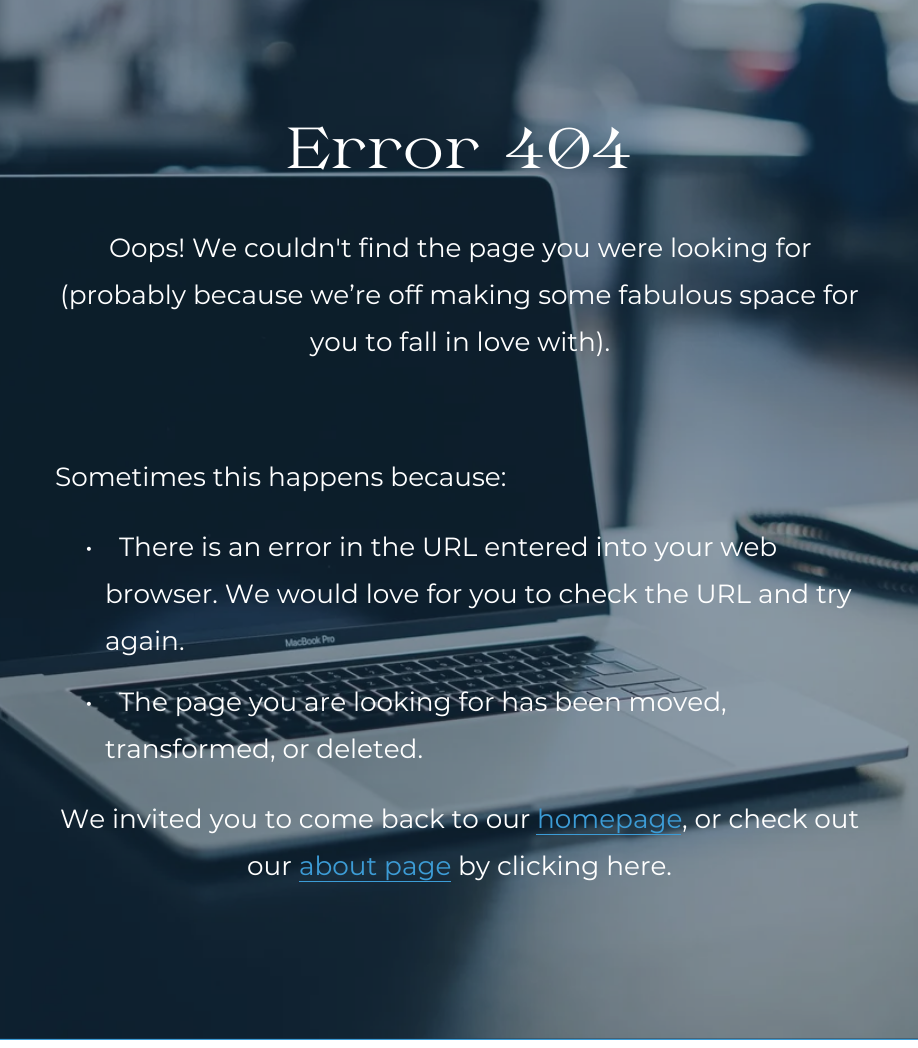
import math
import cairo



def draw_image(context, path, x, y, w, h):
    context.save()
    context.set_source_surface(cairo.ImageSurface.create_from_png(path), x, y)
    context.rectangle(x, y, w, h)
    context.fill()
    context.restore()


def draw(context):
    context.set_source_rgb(1, 1, 1)
    context.paint()
    context.set_source_rgb(25 / 255, 62 / 255, 89 / 255)
    context.rectangle(0, 1038, 918, 1)
    context.fill()
    draw_image(context, "images/1.png", 0, 0, 918, 1039)
    context.set_source_rgb(60 / 255, 156 / 255, 214 / 255)
    context.rectangle(536, 834, 145, 1)
    context.fill()
    context.rectangle(299, 881, 152, 1)
    context.fill()
    context.rectangle(0, 1039, 918, 1)
    context.fill()
    context.select_font_face("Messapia")
    context.set_font_size(57.75)
    context.set_source_rgb(1, 1, 1)
    context.move_to(285, 168)
    context.show_text("Error 404")
    context.select_font_face("Montserrat")
    context.set_font_size(26.3)
    context.move_to(109, 257)
    context.show_text("Oops! We couldn't find the page you were looking for")
    context.move_to(60, 304)
    context.show_text("(probably because we’re off making some fabulous space for")
    context.move_to(310, 351)
    context.show_text("you to fall in love with).")
    context.move_to(55, 486)
    context.show_text("Sometimes this happens because:")
    context.move_to(85, 556)
    context.show_text("•")
    context.move_to(119, 556)
    context.show_text("There is an error in the URL entered into your web")
    context.move_to(105, 603)
    context.show_text("browser. We would love for you to check the URL and try")
    context.move_to(105, 650)
    context.show_text("again.")
    context.move_to(85, 711)
    context.show_text("•")
    context.move_to(119, 711)
    context.show_text("The page you are looking for has been moved,")
    context.move_to(105, 758)
    context.show_text("transformed, or deleted.")
    context.move_to(60, 828)
    context.show_text("We invited you to come back to our")
    context.set_source_rgb(60 / 255, 156 / 255, 214 / 255)
    context.move_to(537, 828)
    context.show_text("homepage")
    context.set_source_rgb(1, 1, 1)
    context.move_to(682, 828)
    context.show_text(", or check out")
    context.move_to(247, 875)
    context.show_text("our")
    context.set_source_rgb(60 / 255, 156 / 255, 214 / 255)
    context.move_to(299, 875)
    context.show_text("about page")
    context.set_source_rgb(1, 1, 1)
    context.move_to(458, 875)
    context.show_text("by clicking here.")


surface = cairo.ImageSurface(cairo.Format.RGB24, 918, 1048)
context = cairo.Context(surface)
options = cairo.FontOptions()
options.set_hint_metrics(cairo.HintMetrics.OFF)
options.set_hint_style(cairo.HintStyle.NONE)
context.set_font_options(options)
context.set_miter_limit(4)
draw(context)
surface.write_to_png("out.png")
